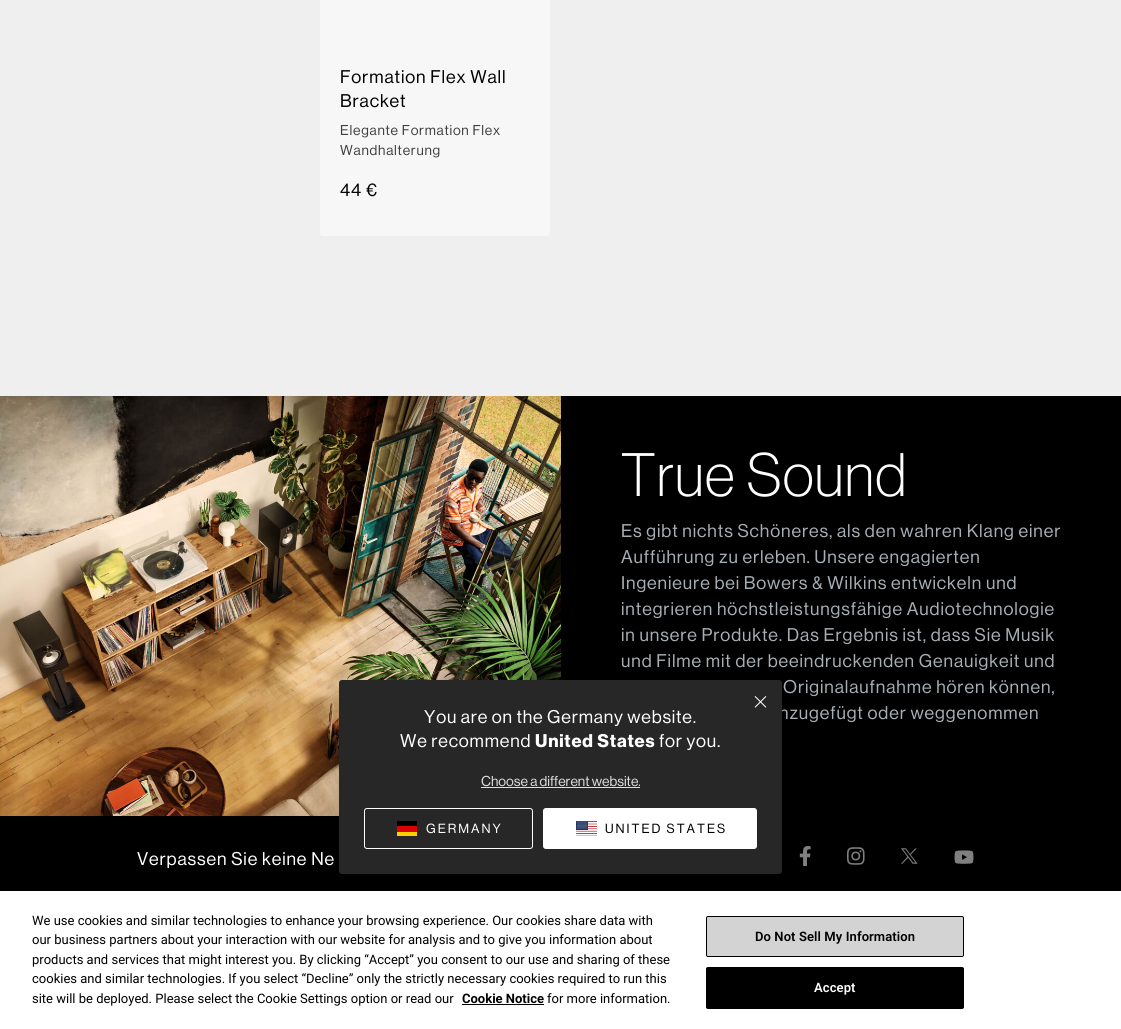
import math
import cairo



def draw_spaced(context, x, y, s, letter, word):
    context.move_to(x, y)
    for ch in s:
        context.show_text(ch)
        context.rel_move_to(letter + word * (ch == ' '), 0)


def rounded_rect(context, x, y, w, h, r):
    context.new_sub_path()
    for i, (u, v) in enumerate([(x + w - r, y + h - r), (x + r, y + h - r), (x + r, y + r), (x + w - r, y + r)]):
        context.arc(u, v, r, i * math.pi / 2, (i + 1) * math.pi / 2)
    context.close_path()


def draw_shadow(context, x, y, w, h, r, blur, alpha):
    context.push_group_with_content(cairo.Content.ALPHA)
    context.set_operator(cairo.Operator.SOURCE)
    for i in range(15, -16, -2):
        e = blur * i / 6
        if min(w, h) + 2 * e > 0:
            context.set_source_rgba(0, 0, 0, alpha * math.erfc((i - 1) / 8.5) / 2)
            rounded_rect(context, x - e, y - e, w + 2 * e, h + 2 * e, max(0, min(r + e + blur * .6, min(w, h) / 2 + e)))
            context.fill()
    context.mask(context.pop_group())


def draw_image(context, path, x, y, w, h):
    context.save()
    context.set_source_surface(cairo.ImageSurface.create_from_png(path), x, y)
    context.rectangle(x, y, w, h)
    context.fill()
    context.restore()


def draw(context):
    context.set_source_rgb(239 / 255, 239 / 255, 239 / 255)
    context.paint()
    context.set_source_rgb(247 / 255, 247 / 255, 247 / 255)
    rounded_rect(context, 320, -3, 230, 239, 3)
    context.fill()
    draw_image(context, "images/1.png", 0, 396, 561, 420)
    context.set_source_rgb(0, 0, 0)
    context.rectangle(561, 396, 560, 420)
    context.fill()
    context.rectangle(0, 816, 1121, 75)
    context.fill()
    draw_image(context, "images/4.png", 799, 846, 12, 20)
    context.set_source_rgb(0, 0, 0)
    draw_shadow(context, 336, 677, 449, 200, 6, 7.5, 0.12)
    draw_image(context, "images/5.png", 847, 847, 18, 18)
    draw_image(context, "images/6.png", 901, 848, 17, 16)
    draw_image(context, "images/7.png", 954, 850, 20, 14)
    context.set_source_rgb(1, 1, 1)
    context.rectangle(0, 891, 1121, 138)
    context.fill()
    context.set_source_rgb(0, 0, 0)
    context.rectangle(462, 1004, 82, 1)
    context.fill()
    context.set_source_rgb(211 / 255, 211 / 255, 211 / 255)
    rounded_rect(context, 706.5, 916.5, 257, 40, 1.5)
    context.fill_preserve()
    context.set_source_rgb(0, 0, 0)
    context.set_line_width(1)
    context.stroke()
    rounded_rect(context, 706.5, 967.5, 257, 41, 1.5)
    context.fill_preserve()
    context.stroke()
    context.select_font_face("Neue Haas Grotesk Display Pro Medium")
    context.set_font_size(18)
    draw_spaced(context, 340, 83, "Formation Flex Wall", 0.9, 0)
    draw_spaced(context, 340, 107, "Bracket", 0.9, 0)
    context.set_font_size(14)
    context.set_source_rgb(64 / 255, 64 / 255, 64 / 255)
    draw_spaced(context, 340, 135, "Elegante Formation Flex", 0.75, 0)
    draw_spaced(context, 340, 155, "Wandhalterung", 0.75, 0)
    context.set_font_size(18)
    context.set_source_rgb(0, 0, 0)
    draw_spaced(context, 340, 196, "44 €", 0.9, 0)
    context.select_font_face("Neue Haas Grotesk Display Pro")
    context.set_font_size(60)
    context.set_source_rgb(1, 1, 1)
    draw_spaced(context, 621, 496, "True Sound", 1.25, 0)
    context.select_font_face("Neue Haas Grotesk Display Pro Medium")
    context.set_font_size(18)
    context.set_source_rgb(168 / 255, 175 / 255, 180 / 255)
    draw_spaced(context, 621, 537, "Es gibt nichts Schöneres, als den wahren Klang einer", 0.9, 0)
    draw_spaced(context, 621, 563, "Aufführung zu erleben. Unsere engagierten", 0.9, 0)
    draw_spaced(context, 621, 589, "Ingenieure bei Bowers & Wilkins entwickeln und", 0.9, 0)
    draw_spaced(context, 621, 615, "integrieren höchstleistungsfähige Audiotechnologie", 0.9, 0)
    draw_spaced(context, 621, 641, "in unsere Produkte. Das Ergebnis ist, dass Sie Musik", 0.9, 0)
    draw_spaced(context, 621, 667, "und Filme mit der beeindruckenden Genauigkeit und", 0.9, 0)
    draw_spaced(context, 783, 693, "Originalaufnahme hören können,", 0.9, 0)
    draw_spaced(context, 779, 719, "nzugefügt oder weggenommen", 0.9, 0)
    context.set_source_rgb(40 / 255, 39 / 255, 39 / 255)
    rounded_rect(context, 339, 680, 443, 194, 3)
    context.fill()
    draw_image(context, "images/2.png", 754, 696, 13, 12)
    context.set_source_rgb(1, 1, 1)
    draw_spaced(context, 424, 723, "You are on the Germany website.", 0.8, 0)
    draw_spaced(context, 400, 747, "We recommend", 0.8, 0)
    context.select_font_face("Neue Haas Grotesk Display Pro", cairo.FontSlant.NORMAL, cairo.FontWeight.BOLD)
    draw_spaced(context, 535, 747, "United States", 0.8, 0)
    context.select_font_face("Neue Haas Grotesk Display Pro Medium")
    draw_spaced(context, 659, 747, "for you.", 0.8, 0)
    context.set_font_size(14)
    context.set_source_rgb(223 / 255, 223 / 255, 223 / 255)
    context.move_to(481, 786)
    context.show_text("Choose a different website.")
    context.rectangle(481, 787, 159, 1)
    context.fill()
    rounded_rect(context, 364.5, 808.5, 168, 40, 2.5)
    context.set_source_rgb(1, 1, 1)
    context.stroke()
    context.set_source_rgb(1, 206 / 255, 0)
    context.rectangle(397, 832, 20, 4)
    context.fill()
    context.set_source_rgb(0, 0, 0)
    context.rectangle(397, 821, 20, 5)
    context.fill()
    context.set_source_rgb(221 / 255, 0, 0)
    context.rectangle(397, 826, 20, 6)
    context.fill()
    context.set_font_size(13)
    context.set_source_rgb(1, 1, 1)
    draw_spaced(context, 426, 833, "GERMANY", 2, 0)
    rounded_rect(context, 543.5, 808.5, 213, 40, 2.5)
    context.fill_preserve()
    context.stroke()
    draw_image(context, "images/3.png", 576, 821, 21, 15)
    context.set_source_rgb(0, 0, 0)
    draw_spaced(context, 605, 833, "UNITED STATES", 2, 0)
    context.set_font_size(18)
    context.set_source_rgb(1, 1, 1)
    draw_spaced(context, 137, 865, "Verpassen Sie keine Ne", 0.9, 0)
    context.select_font_face("Roboto")
    context.set_font_size(13)
    context.set_source_rgb(0, 0, 0)
    context.move_to(32, 925)
    context.show_text("We use cookies and similar technologies to enhance your browsing experience. Our cookies share data with")
    context.move_to(32, 944)
    context.show_text("our business partners about your interaction with our website for analysis and to give you information about")
    context.move_to(32, 964)
    context.show_text("products and services that might interest you. By clicking “Accept” you consent to our use and sharing of these")
    context.move_to(32, 983)
    context.show_text("cookies and similar technologies. If you select “Decline” only the strictly necessary cookies required to run this")
    context.move_to(32, 1003)
    context.show_text("site will be deployed. Please select the Cookie Settings option or read our")
    context.select_font_face("Roboto", cairo.FontSlant.NORMAL, cairo.FontWeight.BOLD)
    context.move_to(462, 1003)
    context.show_text("Cookie Notice")
    context.select_font_face("Roboto")
    context.move_to(547, 1003)
    context.show_text("for more information.")
    context.select_font_face("Roboto SemiBold")
    draw_spaced(context, 755, 941, "Do Not Sell My Information", 0.1, 0)
    context.set_source_rgb(1, 1, 1)
    draw_spaced(context, 814, 992, "Accept", 0.1, 0)


surface = cairo.ImageSurface(cairo.Format.RGB24, 1121, 1029)
context = cairo.Context(surface)
options = cairo.FontOptions()
options.set_hint_metrics(cairo.HintMetrics.OFF)
options.set_hint_style(cairo.HintStyle.NONE)
context.set_font_options(options)
context.set_miter_limit(4)
draw(context)
surface.write_to_png("out.png")
